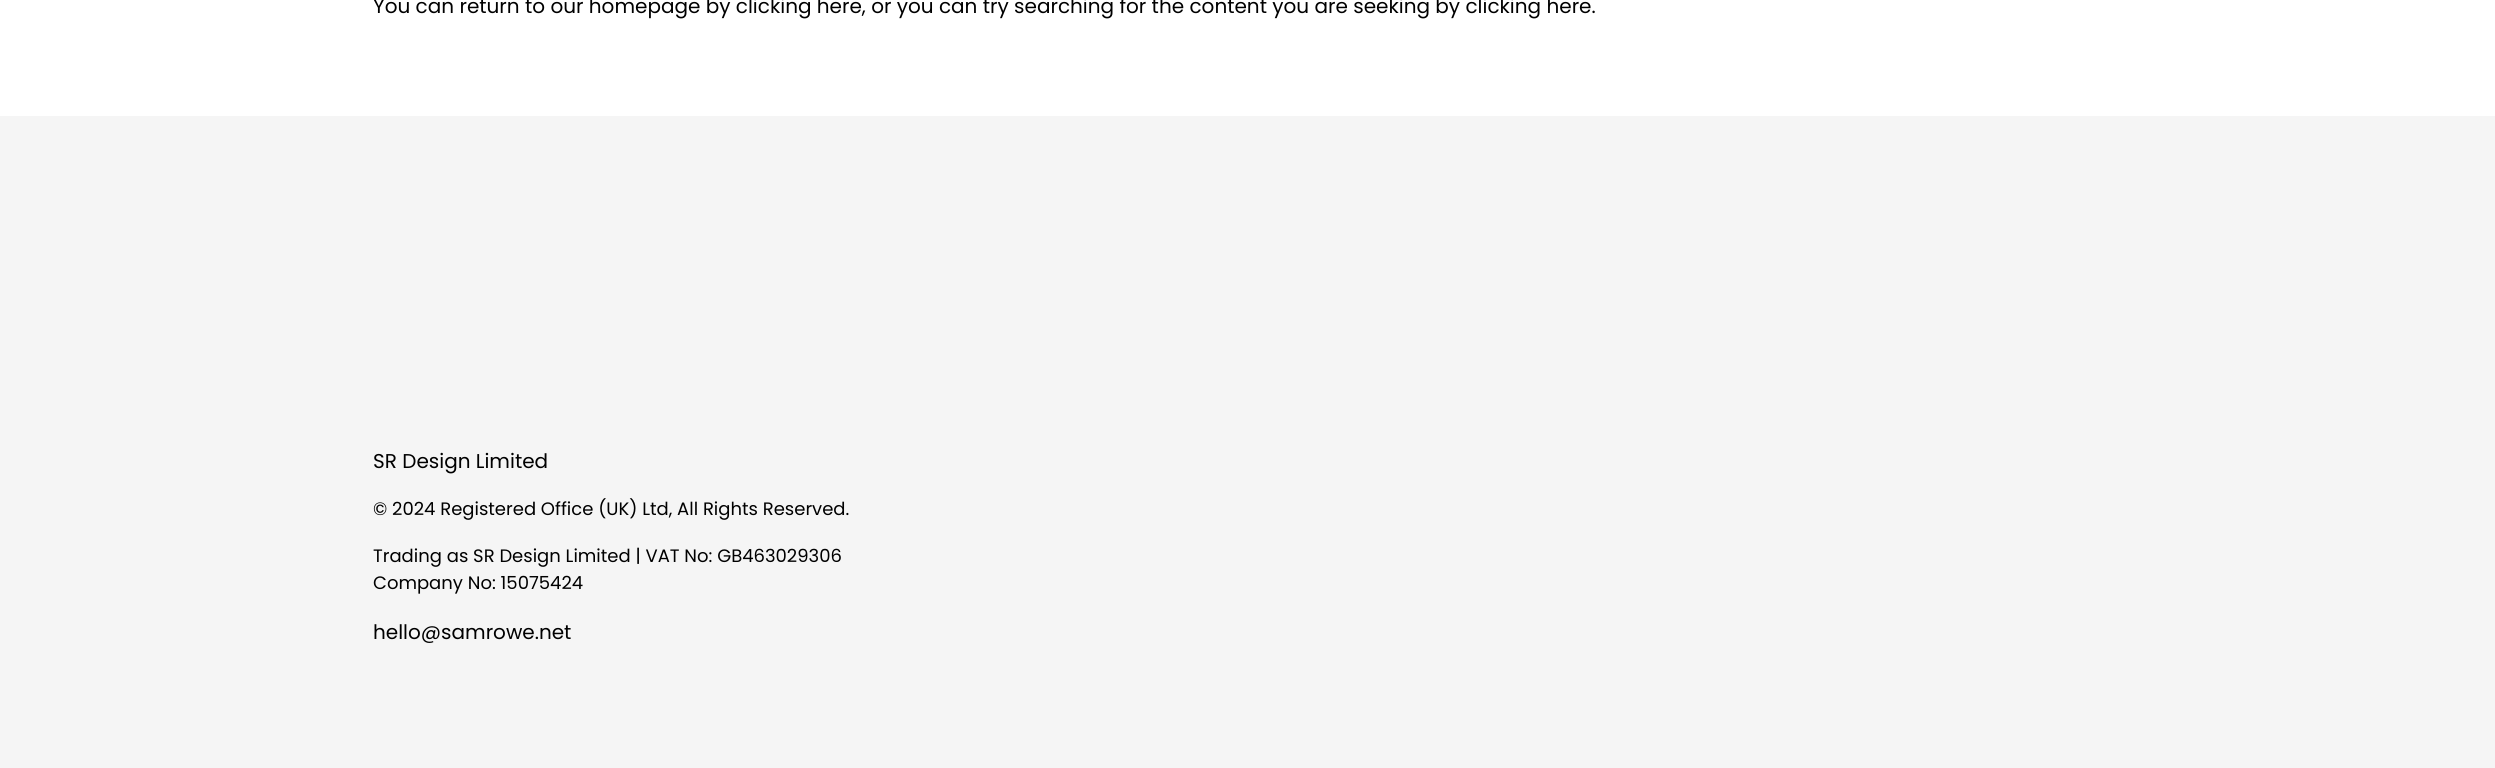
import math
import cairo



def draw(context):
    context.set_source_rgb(1, 1, 1)
    context.paint()
    context.set_source_rgb(245 / 255, 245 / 255, 245 / 255)
    context.rectangle(0, 116, 2495, 652)
    context.fill()
    context.select_font_face("Poppins")
    context.set_font_size(20)
    context.set_source_rgb(0, 0, 0)
    context.move_to(373, 13)
    context.show_text("You can return to our homepage by clicking here, or you can try searching for the content you are seeking by clicking here.")
    context.move_to(373, 468)
    context.show_text("SR Design Limited")
    context.set_font_size(18)
    context.move_to(373, 515)
    context.show_text("© 2024 Registered Office (UK) Ltd, All Rights Reserved.")
    context.move_to(373, 562)
    context.show_text("Trading as SR Design Limited | VAT No: GB463029306")
    context.move_to(373, 589)
    context.show_text("Company No: 15075424")
    context.set_font_size(20)
    context.move_to(373, 639)
    context.show_text("hello@samrowe.net")


surface = cairo.ImageSurface(cairo.Format.RGB24, 2495, 768)
context = cairo.Context(surface)
options = cairo.FontOptions()
options.set_hint_metrics(cairo.HintMetrics.OFF)
options.set_hint_style(cairo.HintStyle.NONE)
context.set_font_options(options)
context.set_miter_limit(4)
draw(context)
surface.write_to_png("out.png")
